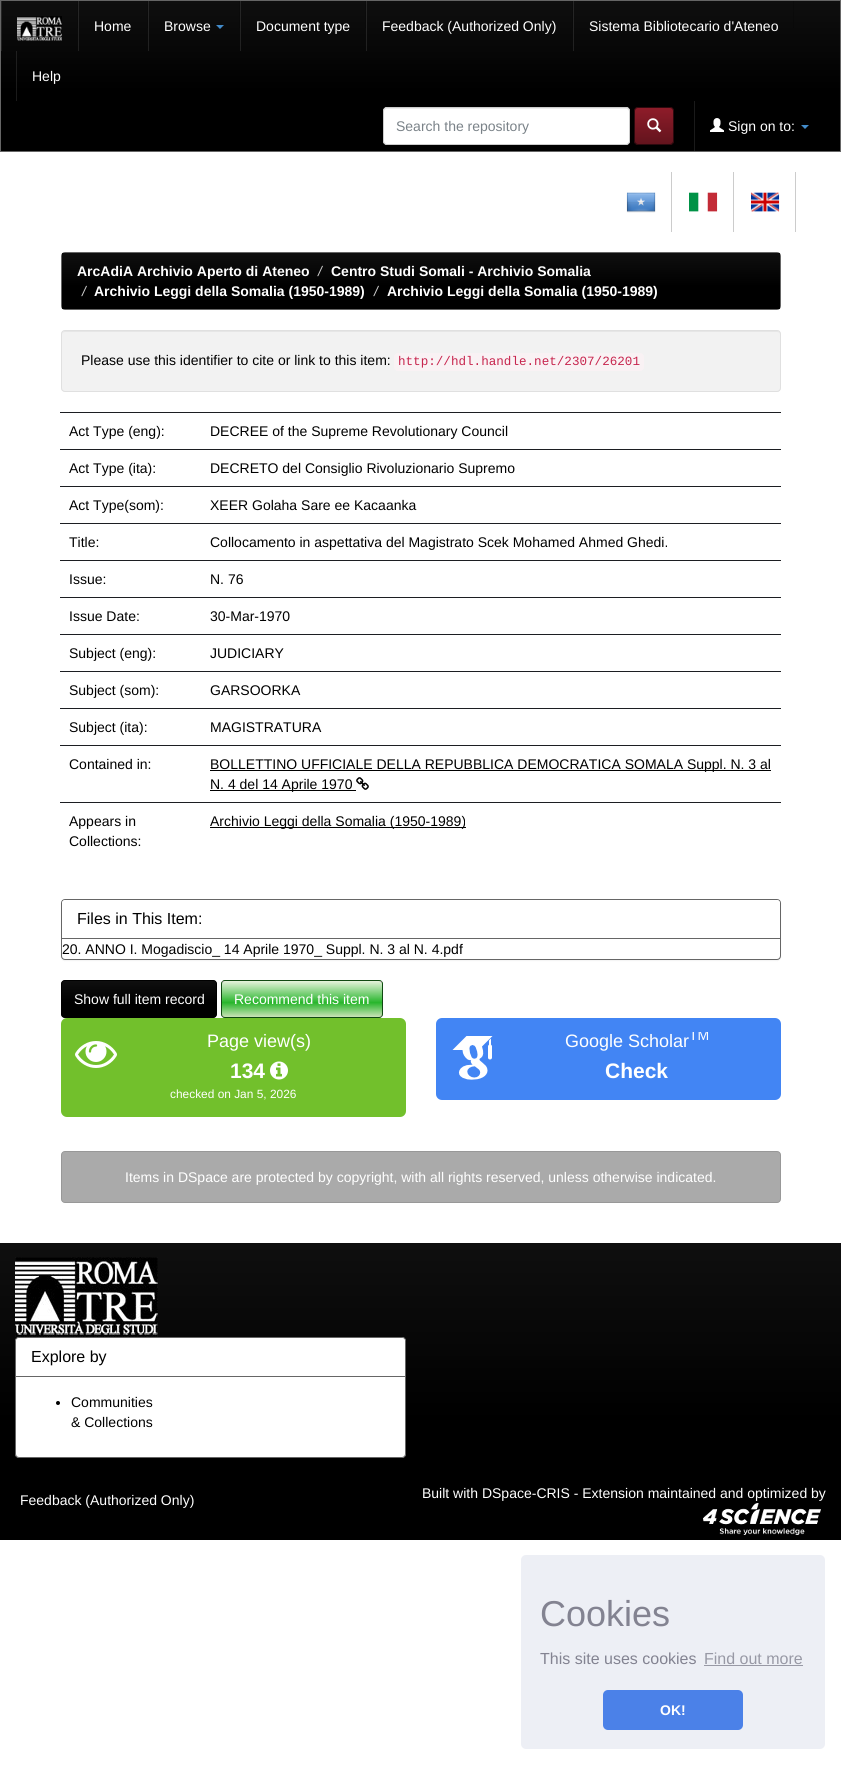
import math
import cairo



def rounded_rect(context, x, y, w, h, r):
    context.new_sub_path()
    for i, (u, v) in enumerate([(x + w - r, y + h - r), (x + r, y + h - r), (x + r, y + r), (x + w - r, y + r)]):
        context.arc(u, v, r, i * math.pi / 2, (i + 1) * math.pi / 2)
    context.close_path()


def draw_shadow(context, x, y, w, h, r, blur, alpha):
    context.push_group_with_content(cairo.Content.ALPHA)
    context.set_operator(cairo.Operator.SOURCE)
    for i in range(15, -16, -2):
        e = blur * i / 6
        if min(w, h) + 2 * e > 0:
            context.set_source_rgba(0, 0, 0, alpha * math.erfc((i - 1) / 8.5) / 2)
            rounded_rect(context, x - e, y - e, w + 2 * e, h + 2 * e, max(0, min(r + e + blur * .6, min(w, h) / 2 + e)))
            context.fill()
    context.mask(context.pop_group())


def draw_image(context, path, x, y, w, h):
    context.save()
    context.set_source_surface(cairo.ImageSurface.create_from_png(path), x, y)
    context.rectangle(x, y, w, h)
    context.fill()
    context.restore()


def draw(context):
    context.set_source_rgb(1, 1, 1)
    context.paint()
    gradient = cairo.LinearGradient(421, 1, 421, 151)
    gradient.add_color_stop_rgba(0, 15 / 255, 15 / 255, 15 / 255, 1)
    gradient.add_color_stop_rgba(0.6, 0, 0, 0, 1)
    gradient.add_color_stop_rgba(1, 0, 0, 0, 1)
    context.set_source(gradient)
    context.rectangle(1, 1, 839, 150)
    context.fill()
    gradient = cairo.LinearGradient(421, 1, 421, 151)
    gradient.add_color_stop_rgba(0, 39 / 255, 39 / 255, 39 / 255, 1)
    gradient.add_color_stop_rgba(0.6, 26 / 255, 26 / 255, 26 / 255, 1)
    gradient.add_color_stop_rgba(1, 26 / 255, 26 / 255, 26 / 255, 1)
    context.set_source(gradient)
    context.rectangle(16, 51, 1, 50)
    context.fill()
    context.rectangle(573, 1, 1, 50)
    context.fill()
    gradient = cairo.LinearGradient(421, 1, 421, 151)
    gradient.add_color_stop_rgba(0, 12 / 255, 12 / 255, 12 / 255, 1)
    gradient.add_color_stop_rgba(0.6, 0, 0, 0, 1)
    gradient.add_color_stop_rgba(1, 0, 0, 0, 1)
    context.set_source(gradient)
    context.rectangle(793, 1, 1, 27)
    context.fill()
    gradient = cairo.LinearGradient(421, 1, 421, 151)
    gradient.add_color_stop_rgba(0, 39 / 255, 39 / 255, 39 / 255, 1)
    gradient.add_color_stop_rgba(0.6, 26 / 255, 26 / 255, 26 / 255, 1)
    gradient.add_color_stop_rgba(1, 26 / 255, 26 / 255, 26 / 255, 1)
    context.set_source(gradient)
    context.rectangle(366, 1, 1, 50)
    context.fill()
    gradient = cairo.LinearGradient(421, 1, 421, 151)
    gradient.add_color_stop_rgba(0, 12 / 255, 12 / 255, 12 / 255, 1)
    gradient.add_color_stop_rgba(0.6, 0, 0, 0, 1)
    gradient.add_color_stop_rgba(1, 0, 0, 0, 1)
    context.set_source(gradient)
    context.rectangle(572, 1, 1, 27)
    context.fill()
    gradient = cairo.LinearGradient(421, 1, 421, 151)
    gradient.add_color_stop_rgba(0, 39 / 255, 39 / 255, 39 / 255, 1)
    gradient.add_color_stop_rgba(0.6, 26 / 255, 26 / 255, 26 / 255, 1)
    gradient.add_color_stop_rgba(1, 26 / 255, 26 / 255, 26 / 255, 1)
    context.set_source(gradient)
    context.rectangle(240, 1, 1, 50)
    context.fill()
    gradient = cairo.LinearGradient(421, 1, 421, 151)
    gradient.add_color_stop_rgba(0, 12 / 255, 12 / 255, 12 / 255, 1)
    gradient.add_color_stop_rgba(0.6, 0, 0, 0, 1)
    gradient.add_color_stop_rgba(1, 0, 0, 0, 1)
    context.set_source(gradient)
    context.rectangle(365, 1, 1, 27)
    context.fill()
    gradient = cairo.LinearGradient(421, 1, 421, 151)
    gradient.add_color_stop_rgba(0, 39 / 255, 39 / 255, 39 / 255, 1)
    gradient.add_color_stop_rgba(0.6, 26 / 255, 26 / 255, 26 / 255, 1)
    gradient.add_color_stop_rgba(1, 26 / 255, 26 / 255, 26 / 255, 1)
    context.set_source(gradient)
    context.rectangle(148, 1, 1, 50)
    context.fill()
    gradient = cairo.LinearGradient(421, 1, 421, 151)
    gradient.add_color_stop_rgba(0, 12 / 255, 12 / 255, 12 / 255, 1)
    gradient.add_color_stop_rgba(0.6, 0, 0, 0, 1)
    gradient.add_color_stop_rgba(1, 0, 0, 0, 1)
    context.set_source(gradient)
    context.rectangle(239, 1, 1, 27)
    context.fill()
    gradient = cairo.LinearGradient(421, 1, 421, 151)
    gradient.add_color_stop_rgba(0, 39 / 255, 39 / 255, 39 / 255, 1)
    gradient.add_color_stop_rgba(0.6, 26 / 255, 26 / 255, 26 / 255, 1)
    gradient.add_color_stop_rgba(1, 26 / 255, 26 / 255, 26 / 255, 1)
    context.set_source(gradient)
    context.rectangle(78, 1, 1, 50)
    context.fill()
    gradient = cairo.LinearGradient(421, 1, 421, 151)
    gradient.add_color_stop_rgba(0, 12 / 255, 12 / 255, 12 / 255, 1)
    gradient.add_color_stop_rgba(0.6, 0, 0, 0, 1)
    gradient.add_color_stop_rgba(1, 0, 0, 0, 1)
    context.set_source(gradient)
    context.rectangle(147, 1, 1, 27)
    context.fill()
    gradient = cairo.LinearGradient(421, 1, 421, 151)
    gradient.add_color_stop_rgba(0, 39 / 255, 39 / 255, 39 / 255, 1)
    gradient.add_color_stop_rgba(0.6, 26 / 255, 26 / 255, 26 / 255, 1)
    gradient.add_color_stop_rgba(1, 26 / 255, 26 / 255, 26 / 255, 1)
    context.set_source(gradient)
    context.rectangle(1, 1, 1, 50)
    context.fill()
    gradient = cairo.LinearGradient(421, 1, 421, 151)
    gradient.add_color_stop_rgba(0, 12 / 255, 12 / 255, 12 / 255, 1)
    gradient.add_color_stop_rgba(0.6, 0, 0, 0, 1)
    gradient.add_color_stop_rgba(1, 0, 0, 0, 1)
    context.set_source(gradient)
    context.rectangle(77, 1, 1, 27)
    context.fill()
    context.rectangle(0.5, 0.5, 840, 151)
    context.set_source_rgb(102 / 255, 102 / 255, 102 / 255)
    context.set_line_width(1)
    context.stroke()
    draw_image(context, "images/1.png", 17, 16, 45, 25)
    context.set_source_rgb(66 / 255, 139 / 255, 202 / 255)
    context.new_path()
    context.move_to(216, 25)
    context.line_to(224, 25)
    context.line_to(220, 29)
    context.close_path()
    context.fill()
    context.set_source_rgb(1, 1, 1)
    rounded_rect(context, 383, 107, 247, 38, 4)
    context.fill()
    context.set_source_rgb(236 / 255, 236 / 255, 236 / 255)
    context.new_path()
    context.move_to(387, 109)
    context.line_to(627, 109)
    context.line_to(629, 110)
    context.line_to(629, 112)
    context.curve_to(629, 110, 628, 108, 626, 108)
    context.line_to(387, 108)
    context.curve_to(385, 108, 384, 110, 384, 112)
    context.curve_to(384, 110, 385, 109, 387, 109)
    context.close_path()
    context.fill()
    rounded_rect(context, 383.5, 107.5, 246, 37, 3.5)
    context.set_source_rgb(204 / 255, 204 / 255, 204 / 255)
    context.stroke()
    context.set_source_rgb(116 / 255, 23 / 255, 34 / 255)
    rounded_rect(context, 634, 107, 40, 38, 4)
    context.fill()
    context.save()
    rounded_rect(context, 634, 107, 40, 38, 4)
    context.clip()
    gradient = cairo.LinearGradient(654, 108, 654, 144)
    gradient.add_color_stop_rgba(0, 142 / 255, 28 / 255, 41 / 255, 1)
    gradient.add_color_stop_rgba(0.6, 116 / 255, 23 / 255, 34 / 255, 1)
    gradient.add_color_stop_rgba(1, 99 / 255, 20 / 255, 29 / 255, 1)
    context.set_source(gradient)
    context.rectangle(635, 108, 38, 36)
    context.fill()
    context.restore()
    rounded_rect(context, 634.5, 107.5, 39, 37, 3.5)
    context.set_source_rgba(0, 0, 0, 0.6)
    context.stroke()
    draw_image(context, "images/2.png", 647, 118, 15, 15)
    context.set_source_rgb(26 / 255, 26 / 255, 26 / 255)
    context.rectangle(694, 101, 1, 50)
    context.fill()
    draw_image(context, "images/3.png", 710, 118, 14, 14)
    context.set_source_rgb(66 / 255, 139 / 255, 202 / 255)
    context.new_path()
    context.move_to(801, 125)
    context.line_to(809, 125)
    context.line_to(805, 129)
    context.close_path()
    context.fill()
    context.set_source_rgb(204 / 255, 204 / 255, 204 / 255)
    context.rectangle(671, 172, 1, 60)
    context.fill()
    draw_image(context, "images/4.png", 626, 192, 30, 21)
    context.rectangle(733, 172, 1, 60)
    context.fill()
    draw_image(context, "images/5.png", 689, 192, 29, 20)
    context.rectangle(795, 172, 1, 60)
    context.fill()
    draw_image(context, "images/6.png", 751, 192, 29, 20)
    context.save()
    rounded_rect(context, 61, 252, 720, 58, 4)
    context.clip()
    gradient = cairo.LinearGradient(421, 253, 421, 309)
    gradient.add_color_stop_rgba(0, 15 / 255, 15 / 255, 15 / 255, 1)
    gradient.add_color_stop_rgba(0.6, 0, 0, 0, 1)
    gradient.add_color_stop_rgba(1, 0, 0, 0, 1)
    context.set_source(gradient)
    context.rectangle(62, 253, 718, 56)
    context.fill()
    context.restore()
    rounded_rect(context, 61.5, 252.5, 719, 57, 3.5)
    context.set_source_rgba(0, 0, 0, 0.6)
    context.stroke()
    context.set_source_rgb(242 / 255, 242 / 255, 242 / 255)
    rounded_rect(context, 61, 330, 720, 62, 4)
    context.fill()
    context.set_source_rgb(230 / 255, 230 / 255, 230 / 255)
    context.new_path()
    context.move_to(65, 332)
    context.line_to(777, 332)
    context.curve_to(779, 332, 780, 333, 780, 335)
    context.curve_to(780, 333, 779, 331, 777, 331)
    context.line_to(65, 331)
    context.curve_to(63, 331, 62, 333, 62, 335)
    context.curve_to(62, 333, 63, 332, 65, 332)
    context.close_path()
    context.fill()
    rounded_rect(context, 61.5, 330.5, 719, 61, 3.5)
    context.set_source_rgb(224 / 255, 224 / 255, 224 / 255)
    context.stroke()
    context.set_source_rgb(249 / 255, 242 / 255, 244 / 255)
    rounded_rect(context, 394, 353, 250, 18, 4)
    context.fill()
    context.set_source_rgb(28 / 255, 30 / 255, 34 / 255)
    context.rectangle(60, 412, 721, 1)
    context.fill()
    context.rectangle(60, 449, 721, 1)
    context.fill()
    context.rectangle(60, 486, 721, 1)
    context.fill()
    context.rectangle(60, 523, 721, 1)
    context.fill()
    context.rectangle(60, 560, 721, 1)
    context.fill()
    context.rectangle(60, 597, 721, 1)
    context.fill()
    context.rectangle(60, 634, 721, 1)
    context.fill()
    context.rectangle(60, 671, 721, 1)
    context.fill()
    context.rectangle(60, 708, 721, 1)
    context.fill()
    context.rectangle(60, 745, 721, 1)
    context.fill()
    context.set_source_rgb(0, 0, 0)
    context.rectangle(210, 770, 561, 1)
    context.fill()
    context.rectangle(210, 790, 146, 1)
    context.fill()
    draw_image(context, "images/7.png", 356, 777, 13, 13)
    context.set_source_rgb(28 / 255, 30 / 255, 34 / 255)
    context.rectangle(60, 802, 721, 1)
    context.fill()
    context.set_source_rgb(0, 0, 0)
    context.rectangle(210, 827, 256, 1)
    context.fill()
    context.set_source_rgb(0, 0, 0)
    draw_shadow(context, 61, 900, 720, 61, 4, 0.5, 0.05)
    context.set_source_rgb(1, 1, 1)
    rounded_rect(context, 61.5, 899.5, 719, 60, 3.5)
    context.fill_preserve()
    context.set_source_rgb(102 / 255, 102 / 255, 102 / 255)
    context.stroke()
    context.set_source_rgb(1, 1, 1)
    context.new_path()
    context.move_to(65, 900)
    context.line_to(777, 900)
    context.curve_to(778.5, 900, 780, 901.5, 780, 903)
    context.line_to(780, 939)
    context.line_to(62, 939)
    context.line_to(62, 903)
    context.curve_to(62, 901.5, 63.5, 900, 65, 900)
    context.close_path()
    context.fill()
    context.set_source_rgb(102 / 255, 102 / 255, 102 / 255)
    context.rectangle(62, 938, 718, 1)
    context.fill()
    context.set_source_rgb(0, 0, 0)
    rounded_rect(context, 61, 980, 156, 38, 4)
    context.fill()
    context.save()
    rounded_rect(context, 61, 980, 156, 38, 4)
    context.clip()
    gradient = cairo.LinearGradient(139, 981, 139, 1017)
    gradient.add_color_stop_rgba(0, 15 / 255, 15 / 255, 15 / 255, 1)
    gradient.add_color_stop_rgba(0.6, 0, 0, 0, 1)
    gradient.add_color_stop_rgba(1, 0, 0, 0, 1)
    context.set_source(gradient)
    context.rectangle(62, 981, 154, 36)
    context.fill()
    context.restore()
    rounded_rect(context, 61.5, 980.5, 155, 37, 3.5)
    context.set_source_rgba(0, 0, 0, 0.6)
    context.stroke()
    context.set_source_rgb(40 / 255, 182 / 255, 44 / 255)
    rounded_rect(context, 221, 980, 162, 38, 4)
    context.fill()
    context.save()
    rounded_rect(context, 221, 980, 162, 38, 4)
    context.clip()
    gradient = cairo.LinearGradient(302, 981, 302, 1017)
    gradient.add_color_stop_rgba(0, 230 / 255, 242 / 255, 220 / 255, 1)
    gradient.add_color_stop_rgba(0.6, 40 / 255, 182 / 255, 44 / 255, 1)
    gradient.add_color_stop_rgba(1, 203 / 255, 227 / 255, 183 / 255, 1)
    context.set_source(gradient)
    context.rectangle(222, 981, 160, 36)
    context.fill()
    context.restore()
    rounded_rect(context, 221.5, 980.5, 161, 37, 3.5)
    context.set_source_rgba(0, 0, 0, 0.6)
    context.stroke()
    context.set_source_rgb(114 / 255, 192 / 255, 44 / 255)
    rounded_rect(context, 61, 1018, 345, 99, 6)
    context.fill()
    draw_image(context, "images/8.png", 75, 1041, 42, 27)
    draw_image(context, "images/9.png", 270, 1061, 18, 19)
    context.set_source_rgb(66 / 255, 133 / 255, 244 / 255)
    rounded_rect(context, 436, 1018, 345, 82, 6)
    context.fill()
    draw_image(context, "images/10.png", 452, 1036, 41, 44)
    context.set_source_rgb(170 / 255, 170 / 255, 170 / 255)
    rounded_rect(context, 61.5, 1151.5, 719, 51, 3.5)
    context.fill_preserve()
    context.set_source_rgb(152 / 255, 152 / 255, 152 / 255)
    context.stroke()
    gradient = cairo.LinearGradient(421, 1243, 421, 1540)
    gradient.add_color_stop_rgba(0, 15 / 255, 15 / 255, 15 / 255, 1)
    gradient.add_color_stop_rgba(0.6, 0, 0, 0, 1)
    gradient.add_color_stop_rgba(1, 0, 0, 0, 1)
    context.set_source(gradient)
    context.rectangle(0, 1243, 841, 297)
    context.fill()
    draw_image(context, "images/11.png", 15, 1257, 143, 80)
    context.set_source_rgb(1, 1, 1)
    rounded_rect(context, 15, 1337, 391, 121, 4)
    context.fill()
    rounded_rect(context, 15.5, 1337.5, 390, 120, 3.5)
    context.set_source_rgba(0, 0, 0, 0.6)
    context.stroke()
    context.set_source_rgb(1, 1, 1)
    context.new_path()
    context.move_to(19, 1338)
    context.line_to(402, 1338)
    context.curve_to(403.5, 1338, 405, 1339.5, 405, 1341)
    context.line_to(405, 1377)
    context.line_to(16, 1377)
    context.line_to(16, 1341)
    context.curve_to(16, 1339.5, 17.5, 1338, 19, 1338)
    context.close_path()
    context.fill()
    context.set_source_rgb(102 / 255, 102 / 255, 102 / 255)
    context.rectangle(16, 1376, 389, 1)
    context.fill()
    context.set_source_rgb(0, 0, 0)
    context.arc(58, 1403, 2, 0, 2 * math.pi)
    context.fill()
    draw_image(context, "images/12.png", 703, 1503, 118, 32)
    context.set_source_rgb(237 / 255, 239 / 255, 245 / 255)
    rounded_rect(context, 521, 1555, 304, 194, 5)
    context.fill()
    context.set_source_rgb(152 / 255, 153 / 255, 165 / 255)
    context.rectangle(704, 1665, 99, 1)
    context.fill()
    context.set_source_rgb(75 / 255, 129 / 255, 232 / 255)
    rounded_rect(context, 603, 1690, 140, 40, 5)
    context.fill()
    context.select_font_face("Liberation Sans")
    context.set_font_size(14)
    context.set_source_rgb(1, 1, 1)
    context.move_to(94, 31)
    context.show_text("Home")
    context.move_to(164, 31)
    context.show_text("Browse")
    context.move_to(256, 31)
    context.show_text("Document type")
    context.move_to(382, 31)
    context.show_text("Feedback (Authorized Only)")
    context.move_to(589, 31)
    context.show_text("Sistema Bibliotecario d'Ateneo")
    context.move_to(32, 81)
    context.show_text("Help")
    context.set_source_rgb(122 / 255, 130 / 255, 136 / 255)
    context.move_to(396, 131)
    context.show_text("Search the repository")
    context.set_source_rgb(1, 1, 1)
    context.move_to(728, 131)
    context.show_text("Sign on to:")
    context.select_font_face("Liberation Sans", cairo.FontSlant.NORMAL, cairo.FontWeight.BOLD)
    context.move_to(77, 276)
    context.show_text("ArcAdiA Archivio Aperto di Ateneo")
    context.select_font_face("Liberation Sans", cairo.FontSlant.ITALIC)
    context.set_source_rgb(204 / 255, 204 / 255, 204 / 255)
    context.move_to(318, 276)
    context.show_text("/")
    context.select_font_face("Liberation Sans", cairo.FontSlant.NORMAL, cairo.FontWeight.BOLD)
    context.set_source_rgb(1, 1, 1)
    context.move_to(331, 276)
    context.show_text("Centro Studi Somali - Archivio Somalia")
    context.select_font_face("Liberation Sans", cairo.FontSlant.ITALIC)
    context.set_source_rgb(204 / 255, 204 / 255, 204 / 255)
    context.move_to(82, 296)
    context.show_text("/")
    context.select_font_face("Liberation Sans", cairo.FontSlant.NORMAL, cairo.FontWeight.BOLD)
    context.set_source_rgb(1, 1, 1)
    context.move_to(94, 296)
    context.show_text("Archivio Leggi della Somalia (1950-1989)")
    context.select_font_face("Liberation Sans", cairo.FontSlant.ITALIC)
    context.set_source_rgb(204 / 255, 204 / 255, 204 / 255)
    context.move_to(374, 296)
    context.show_text("/")
    context.select_font_face("Liberation Sans", cairo.FontSlant.NORMAL, cairo.FontWeight.BOLD)
    context.set_source_rgb(1, 1, 1)
    context.move_to(387, 296)
    context.show_text("Archivio Leggi della Somalia (1950-1989)")
    context.select_font_face("Liberation Sans")
    context.set_source_rgb(0, 0, 0)
    context.move_to(81, 365)
    context.show_text("Please use this identifier to cite or link to this item:")
    context.select_font_face("Liberation Mono")
    context.set_font_size(12.6)
    context.set_source_rgb(199 / 255, 37 / 255, 78 / 255)
    context.move_to(398, 365)
    context.show_text("http://hdl.handle.net/2307/26201")
    context.select_font_face("Liberation Sans")
    context.set_font_size(14)
    context.set_source_rgb(0, 0, 0)
    context.move_to(69, 436)
    context.show_text("Act Type (eng):")
    context.move_to(210, 436)
    context.show_text("DECREE of the Supreme Revolutionary Council")
    context.move_to(69, 473)
    context.show_text("Act Type (ita):")
    context.move_to(210, 473)
    context.show_text("DECRETO del Consiglio Rivoluzionario Supremo")
    context.move_to(69, 510)
    context.show_text("Act Type(som):")
    context.move_to(210, 510)
    context.show_text("XEER Golaha Sare ee Kacaanka")
    context.move_to(69, 547)
    context.show_text("Title:")
    context.move_to(210, 547)
    context.show_text("Collocamento in aspettativa del Magistrato Scek Mohamed Ahmed Ghedi.")
    context.move_to(69, 584)
    context.show_text("Issue:")
    context.move_to(210, 584)
    context.show_text("N. 76")
    context.move_to(69, 621)
    context.show_text("Issue Date:")
    context.move_to(210, 621)
    context.show_text("30-Mar-1970")
    context.move_to(69, 658)
    context.show_text("Subject (eng):")
    context.move_to(210, 658)
    context.show_text("JUDICIARY")
    context.move_to(69, 695)
    context.show_text("Subject (som):")
    context.move_to(210, 695)
    context.show_text("GARSOORKA")
    context.move_to(69, 732)
    context.show_text("Subject (ita):")
    context.move_to(210, 732)
    context.show_text("MAGISTRATURA")
    context.move_to(69, 769)
    context.show_text("Contained in:")
    context.move_to(210, 769)
    context.show_text("BOLLETTINO UFFICIALE DELLA REPUBBLICA DEMOCRATICA SOMALA Suppl. N. 3 al")
    context.move_to(210, 789)
    context.show_text("N. 4 del 14 Aprile 1970")
    context.move_to(69, 826)
    context.show_text("Appears in")
    context.move_to(69, 846)
    context.show_text("Collections:")
    context.move_to(210, 826)
    context.show_text("Archivio Leggi della Somalia (1950-1989)")
    context.set_font_size(16)
    context.move_to(77, 924)
    context.show_text("Files in This Item:")
    context.set_font_size(14)
    context.move_to(62, 954)
    context.show_text("20. ANNO I. Mogadiscio_ 14 Aprile 1970_ Suppl. N. 3 al N. 4.pdf")
    context.set_source_rgb(1, 1, 1)
    context.move_to(74, 1004)
    context.show_text("Show full item record")
    context.move_to(234, 1004)
    context.show_text("Recommend this item")
    context.set_font_size(18)
    context.move_to(207, 1047)
    context.show_text("Page view(s)")
    context.select_font_face("Liberation Sans", cairo.FontSlant.NORMAL, cairo.FontWeight.BOLD)
    context.set_font_size(21)
    context.move_to(230, 1078)
    context.show_text("134")
    context.select_font_face("Liberation Sans")
    context.set_font_size(11.9)
    context.move_to(170, 1098)
    context.show_text("checked on Jan 5, 2026")
    context.set_font_size(18)
    context.move_to(565, 1047)
    context.show_text("Google Scholar")
    context.save()
    context.rectangle(508, 1032, 259, 54)
    context.clip()
    context.set_font_size(14)
    context.move_to(689, 1040)
    context.show_text("TM")
    context.restore()
    context.select_font_face("Liberation Sans", cairo.FontSlant.NORMAL, cairo.FontWeight.BOLD)
    context.set_font_size(21)
    context.move_to(605, 1078)
    context.show_text("Check")
    context.select_font_face("Liberation Sans")
    context.set_font_size(14)
    context.move_to(125, 1182)
    context.show_text("Items in DSpace are protected by copyright, with all rights reserved, unless otherwise indicated.")
    context.set_font_size(16)
    context.set_source_rgb(0, 0, 0)
    context.move_to(31, 1362)
    context.show_text("Explore by")
    context.set_font_size(14)
    context.move_to(71, 1407)
    context.show_text("Communities")
    context.move_to(71, 1427)
    context.show_text("& Collections")
    context.set_source_rgb(1, 1, 1)
    context.move_to(20, 1505)
    context.show_text("Feedback (Authorized Only)")
    context.move_to(422, 1498)
    context.show_text("Built with DSpace-CRIS - Extension maintained and optimized by")
    context.set_font_size(36)
    context.set_source_rgb(131 / 255, 131 / 255, 145 / 255)
    context.move_to(540, 1626)
    context.show_text("Cookies")
    context.set_font_size(16)
    context.move_to(540, 1664)
    context.show_text("This site uses cookies")
    context.set_source_rgb(152 / 255, 153 / 255, 165 / 255)
    context.move_to(704, 1664)
    context.show_text("Find out more")
    context.select_font_face("Liberation Sans", cairo.FontSlant.NORMAL, cairo.FontWeight.BOLD)
    context.set_font_size(14)
    context.set_source_rgb(1, 1, 1)
    context.move_to(660, 1715)
    context.show_text("OK!")


surface = cairo.ImageSurface(cairo.Format.RGB24, 841, 1765)
context = cairo.Context(surface)
options = cairo.FontOptions()
options.set_hint_metrics(cairo.HintMetrics.OFF)
options.set_hint_style(cairo.HintStyle.NONE)
context.set_font_options(options)
context.set_miter_limit(4)
draw(context)
surface.write_to_png("out.png")
